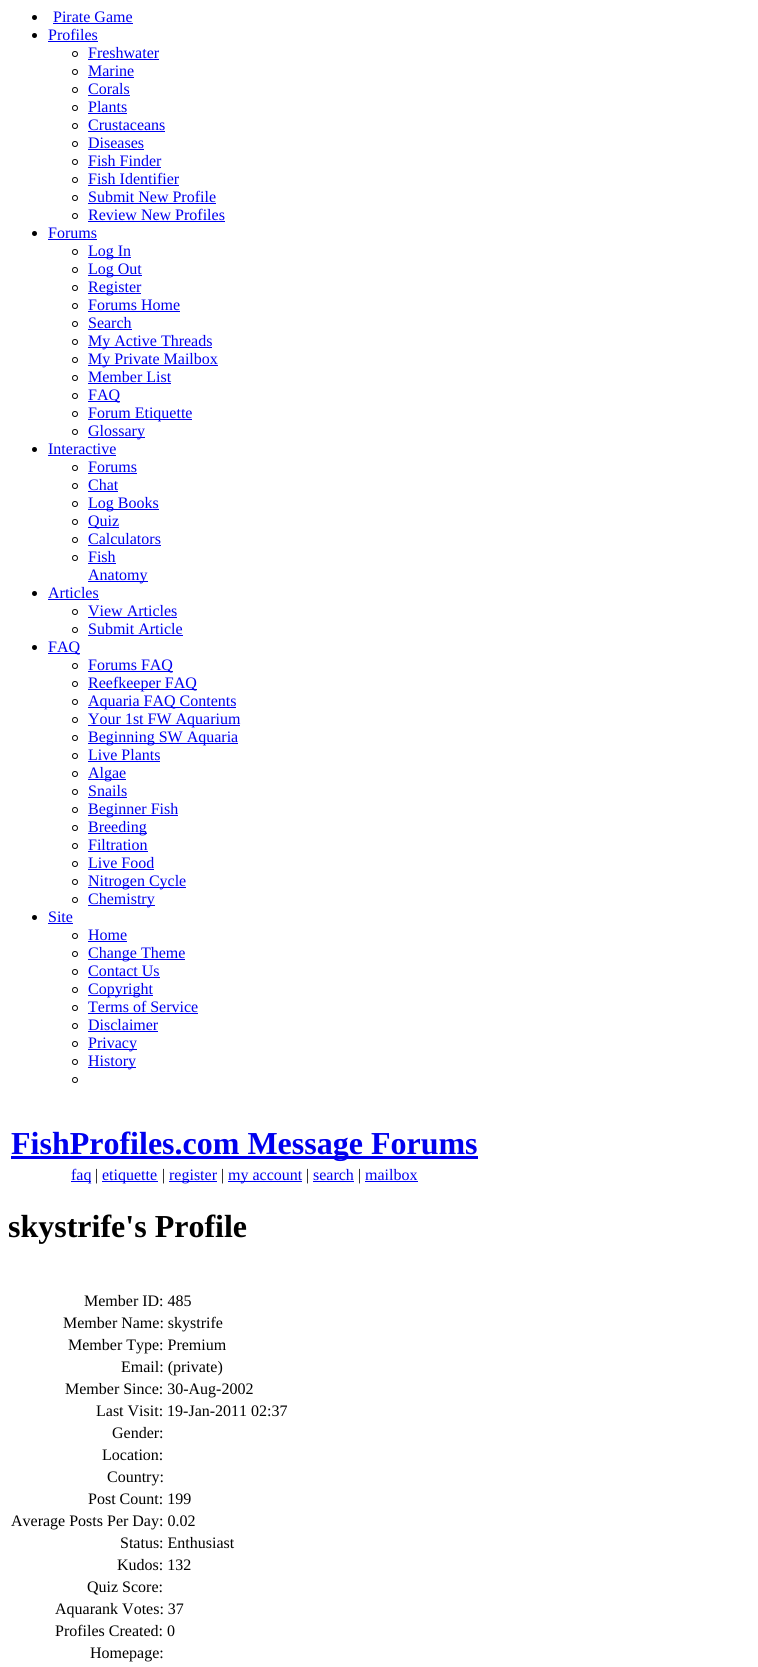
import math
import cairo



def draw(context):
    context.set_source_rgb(1, 1, 1)
    context.paint()
    context.set_source_rgb(0, 0, 0)
    context.arc(34.5, 17.5, 2.5, 0, 2 * math.pi)
    context.fill()
    context.set_source_rgb(0, 0, 238 / 255)
    context.rectangle(53, 23, 80, 1)
    context.fill()
    context.set_source_rgb(0, 0, 0)
    context.arc(34.5, 35.5, 2.5, 0, 2 * math.pi)
    context.fill()
    context.set_source_rgb(0, 0, 238 / 255)
    context.rectangle(48, 41, 50, 1)
    context.fill()
    context.arc(75, 54, 2.5, 0, 2 * math.pi)
    context.set_source_rgb(0, 0, 0)
    context.set_line_width(1)
    context.stroke()
    context.set_source_rgb(0, 0, 238 / 255)
    context.rectangle(88, 59, 71, 1)
    context.fill()
    context.arc(75, 72, 2.5, 0, 2 * math.pi)
    context.set_source_rgb(0, 0, 0)
    context.stroke()
    context.set_source_rgb(0, 0, 238 / 255)
    context.rectangle(88, 77, 46, 1)
    context.fill()
    context.arc(75, 90, 2.5, 0, 2 * math.pi)
    context.set_source_rgb(0, 0, 0)
    context.stroke()
    context.set_source_rgb(0, 0, 238 / 255)
    context.rectangle(88, 95, 42, 1)
    context.fill()
    context.arc(75, 108, 2.5, 0, 2 * math.pi)
    context.set_source_rgb(0, 0, 0)
    context.stroke()
    context.set_source_rgb(0, 0, 238 / 255)
    context.rectangle(88, 113, 39, 1)
    context.fill()
    context.arc(75, 126, 2.5, 0, 2 * math.pi)
    context.set_source_rgb(0, 0, 0)
    context.stroke()
    context.set_source_rgb(0, 0, 238 / 255)
    context.rectangle(88, 131, 77, 1)
    context.fill()
    context.arc(75, 144, 2.5, 0, 2 * math.pi)
    context.set_source_rgb(0, 0, 0)
    context.stroke()
    context.set_source_rgb(0, 0, 238 / 255)
    context.rectangle(88, 149, 56, 1)
    context.fill()
    context.arc(75, 162, 2.5, 0, 2 * math.pi)
    context.set_source_rgb(0, 0, 0)
    context.stroke()
    context.set_source_rgb(0, 0, 238 / 255)
    context.rectangle(88, 167, 73, 1)
    context.fill()
    context.arc(75, 180, 2.5, 0, 2 * math.pi)
    context.set_source_rgb(0, 0, 0)
    context.stroke()
    context.set_source_rgb(0, 0, 238 / 255)
    context.rectangle(88, 185, 91, 1)
    context.fill()
    context.arc(75, 198, 2.5, 0, 2 * math.pi)
    context.set_source_rgb(0, 0, 0)
    context.stroke()
    context.set_source_rgb(0, 0, 238 / 255)
    context.rectangle(88, 203, 128, 1)
    context.fill()
    context.arc(75, 216, 2.5, 0, 2 * math.pi)
    context.set_source_rgb(0, 0, 0)
    context.stroke()
    context.set_source_rgb(0, 0, 238 / 255)
    context.rectangle(88, 221, 137, 1)
    context.fill()
    context.set_source_rgb(0, 0, 0)
    context.arc(34.5, 233.5, 2.5, 0, 2 * math.pi)
    context.fill()
    context.set_source_rgb(0, 0, 238 / 255)
    context.rectangle(48, 239, 49, 1)
    context.fill()
    context.arc(75, 252, 2.5, 0, 2 * math.pi)
    context.set_source_rgb(0, 0, 0)
    context.stroke()
    context.set_source_rgb(0, 0, 238 / 255)
    context.rectangle(88, 257, 43, 1)
    context.fill()
    context.arc(75, 270, 2.5, 0, 2 * math.pi)
    context.set_source_rgb(0, 0, 0)
    context.stroke()
    context.set_source_rgb(0, 0, 238 / 255)
    context.rectangle(88, 275, 54, 1)
    context.fill()
    context.arc(75, 288, 2.5, 0, 2 * math.pi)
    context.set_source_rgb(0, 0, 0)
    context.stroke()
    context.set_source_rgb(0, 0, 238 / 255)
    context.rectangle(88, 293, 53, 1)
    context.fill()
    context.arc(75, 306, 2.5, 0, 2 * math.pi)
    context.set_source_rgb(0, 0, 0)
    context.stroke()
    context.set_source_rgb(0, 0, 238 / 255)
    context.rectangle(88, 311, 92, 1)
    context.fill()
    context.arc(75, 324, 2.5, 0, 2 * math.pi)
    context.set_source_rgb(0, 0, 0)
    context.stroke()
    context.set_source_rgb(0, 0, 238 / 255)
    context.rectangle(88, 329, 44, 1)
    context.fill()
    context.arc(75, 342, 2.5, 0, 2 * math.pi)
    context.set_source_rgb(0, 0, 0)
    context.stroke()
    context.set_source_rgb(0, 0, 238 / 255)
    context.rectangle(88, 347, 124, 1)
    context.fill()
    context.arc(75, 360, 2.5, 0, 2 * math.pi)
    context.set_source_rgb(0, 0, 0)
    context.stroke()
    context.set_source_rgb(0, 0, 238 / 255)
    context.rectangle(88, 365, 130, 1)
    context.fill()
    context.arc(75, 378, 2.5, 0, 2 * math.pi)
    context.set_source_rgb(0, 0, 0)
    context.stroke()
    context.set_source_rgb(0, 0, 238 / 255)
    context.rectangle(88, 383, 83, 1)
    context.fill()
    context.arc(75, 396, 2.5, 0, 2 * math.pi)
    context.set_source_rgb(0, 0, 0)
    context.stroke()
    context.set_source_rgb(0, 0, 238 / 255)
    context.rectangle(88, 401, 32, 1)
    context.fill()
    context.arc(75, 414, 2.5, 0, 2 * math.pi)
    context.set_source_rgb(0, 0, 0)
    context.stroke()
    context.set_source_rgb(0, 0, 238 / 255)
    context.rectangle(88, 419, 104, 1)
    context.fill()
    context.arc(75, 432, 2.5, 0, 2 * math.pi)
    context.set_source_rgb(0, 0, 0)
    context.stroke()
    context.set_source_rgb(0, 0, 238 / 255)
    context.rectangle(88, 437, 57, 1)
    context.fill()
    context.set_source_rgb(0, 0, 0)
    context.arc(34.5, 449.5, 2.5, 0, 2 * math.pi)
    context.fill()
    context.set_source_rgb(0, 0, 238 / 255)
    context.rectangle(48, 455, 68, 1)
    context.fill()
    context.arc(75, 468, 2.5, 0, 2 * math.pi)
    context.set_source_rgb(0, 0, 0)
    context.stroke()
    context.set_source_rgb(0, 0, 238 / 255)
    context.rectangle(88, 473, 49, 1)
    context.fill()
    context.arc(75, 486, 2.5, 0, 2 * math.pi)
    context.set_source_rgb(0, 0, 0)
    context.stroke()
    context.set_source_rgb(0, 0, 238 / 255)
    context.rectangle(88, 491, 30, 1)
    context.fill()
    context.arc(75, 504, 2.5, 0, 2 * math.pi)
    context.set_source_rgb(0, 0, 0)
    context.stroke()
    context.set_source_rgb(0, 0, 238 / 255)
    context.rectangle(88, 509, 71, 1)
    context.fill()
    context.arc(75, 522, 2.5, 0, 2 * math.pi)
    context.set_source_rgb(0, 0, 0)
    context.stroke()
    context.set_source_rgb(0, 0, 238 / 255)
    context.rectangle(88, 527, 31, 1)
    context.fill()
    context.arc(75, 540, 2.5, 0, 2 * math.pi)
    context.set_source_rgb(0, 0, 0)
    context.stroke()
    context.set_source_rgb(0, 0, 238 / 255)
    context.rectangle(88, 545, 73, 1)
    context.fill()
    context.arc(75, 558, 2.5, 0, 2 * math.pi)
    context.set_source_rgb(0, 0, 0)
    context.stroke()
    context.set_source_rgb(0, 0, 238 / 255)
    context.rectangle(88, 563, 28, 1)
    context.fill()
    context.rectangle(88, 581, 60, 1)
    context.fill()
    context.set_source_rgb(0, 0, 0)
    context.arc(34.5, 593.5, 2.5, 0, 2 * math.pi)
    context.fill()
    context.set_source_rgb(0, 0, 238 / 255)
    context.rectangle(48, 599, 51, 1)
    context.fill()
    context.arc(75, 612, 2.5, 0, 2 * math.pi)
    context.set_source_rgb(0, 0, 0)
    context.stroke()
    context.set_source_rgb(0, 0, 238 / 255)
    context.rectangle(88, 617, 89, 1)
    context.fill()
    context.arc(75, 630, 2.5, 0, 2 * math.pi)
    context.set_source_rgb(0, 0, 0)
    context.stroke()
    context.set_source_rgb(0, 0, 238 / 255)
    context.rectangle(88, 635, 95, 1)
    context.fill()
    context.set_source_rgb(0, 0, 0)
    context.arc(34.5, 647.5, 2.5, 0, 2 * math.pi)
    context.fill()
    context.set_source_rgb(0, 0, 238 / 255)
    context.rectangle(48, 653, 32, 1)
    context.fill()
    context.arc(75, 666, 2.5, 0, 2 * math.pi)
    context.set_source_rgb(0, 0, 0)
    context.stroke()
    context.set_source_rgb(0, 0, 238 / 255)
    context.rectangle(88, 671, 85, 1)
    context.fill()
    context.arc(75, 684, 2.5, 0, 2 * math.pi)
    context.set_source_rgb(0, 0, 0)
    context.stroke()
    context.set_source_rgb(0, 0, 238 / 255)
    context.rectangle(88, 689, 109, 1)
    context.fill()
    context.arc(75, 702, 2.5, 0, 2 * math.pi)
    context.set_source_rgb(0, 0, 0)
    context.stroke()
    context.set_source_rgb(0, 0, 238 / 255)
    context.rectangle(88, 707, 148, 1)
    context.fill()
    context.arc(75, 720, 2.5, 0, 2 * math.pi)
    context.set_source_rgb(0, 0, 0)
    context.stroke()
    context.set_source_rgb(0, 0, 238 / 255)
    context.rectangle(88, 725, 152, 1)
    context.fill()
    context.arc(75, 738, 2.5, 0, 2 * math.pi)
    context.set_source_rgb(0, 0, 0)
    context.stroke()
    context.set_source_rgb(0, 0, 238 / 255)
    context.rectangle(88, 743, 150, 1)
    context.fill()
    context.arc(75, 756, 2.5, 0, 2 * math.pi)
    context.set_source_rgb(0, 0, 0)
    context.stroke()
    context.set_source_rgb(0, 0, 238 / 255)
    context.rectangle(88, 761, 72, 1)
    context.fill()
    context.arc(75, 774, 2.5, 0, 2 * math.pi)
    context.set_source_rgb(0, 0, 0)
    context.stroke()
    context.set_source_rgb(0, 0, 238 / 255)
    context.rectangle(88, 779, 38, 1)
    context.fill()
    context.arc(75, 792, 2.5, 0, 2 * math.pi)
    context.set_source_rgb(0, 0, 0)
    context.stroke()
    context.set_source_rgb(0, 0, 238 / 255)
    context.rectangle(88, 797, 39, 1)
    context.fill()
    context.arc(75, 810, 2.5, 0, 2 * math.pi)
    context.set_source_rgb(0, 0, 0)
    context.stroke()
    context.set_source_rgb(0, 0, 238 / 255)
    context.rectangle(88, 815, 90, 1)
    context.fill()
    context.arc(75, 828, 2.5, 0, 2 * math.pi)
    context.set_source_rgb(0, 0, 0)
    context.stroke()
    context.set_source_rgb(0, 0, 238 / 255)
    context.rectangle(88, 833, 59, 1)
    context.fill()
    context.arc(75, 846, 2.5, 0, 2 * math.pi)
    context.set_source_rgb(0, 0, 0)
    context.stroke()
    context.set_source_rgb(0, 0, 238 / 255)
    context.rectangle(88, 851, 60, 1)
    context.fill()
    context.arc(75, 864, 2.5, 0, 2 * math.pi)
    context.set_source_rgb(0, 0, 0)
    context.stroke()
    context.set_source_rgb(0, 0, 238 / 255)
    context.rectangle(88, 869, 66, 1)
    context.fill()
    context.arc(75, 882, 2.5, 0, 2 * math.pi)
    context.set_source_rgb(0, 0, 0)
    context.stroke()
    context.set_source_rgb(0, 0, 238 / 255)
    context.rectangle(88, 887, 98, 1)
    context.fill()
    context.arc(75, 900, 2.5, 0, 2 * math.pi)
    context.set_source_rgb(0, 0, 0)
    context.stroke()
    context.set_source_rgb(0, 0, 238 / 255)
    context.rectangle(88, 905, 67, 1)
    context.fill()
    context.set_source_rgb(0, 0, 0)
    context.arc(34.5, 917.5, 2.5, 0, 2 * math.pi)
    context.fill()
    context.set_source_rgb(0, 0, 238 / 255)
    context.rectangle(48, 923, 25, 1)
    context.fill()
    context.arc(75, 936, 2.5, 0, 2 * math.pi)
    context.set_source_rgb(0, 0, 0)
    context.stroke()
    context.set_source_rgb(0, 0, 238 / 255)
    context.rectangle(88, 941, 39, 1)
    context.fill()
    context.arc(75, 954, 2.5, 0, 2 * math.pi)
    context.set_source_rgb(0, 0, 0)
    context.stroke()
    context.set_source_rgb(0, 0, 238 / 255)
    context.rectangle(88, 959, 97, 1)
    context.fill()
    context.arc(75, 972, 2.5, 0, 2 * math.pi)
    context.set_source_rgb(0, 0, 0)
    context.stroke()
    context.set_source_rgb(0, 0, 238 / 255)
    context.rectangle(88, 977, 72, 1)
    context.fill()
    context.arc(75, 990, 2.5, 0, 2 * math.pi)
    context.set_source_rgb(0, 0, 0)
    context.stroke()
    context.set_source_rgb(0, 0, 238 / 255)
    context.rectangle(88, 995, 65, 1)
    context.fill()
    context.arc(75, 1008, 2.5, 0, 2 * math.pi)
    context.set_source_rgb(0, 0, 0)
    context.stroke()
    context.set_source_rgb(0, 0, 238 / 255)
    context.rectangle(88, 1013, 110, 1)
    context.fill()
    context.arc(75, 1026, 2.5, 0, 2 * math.pi)
    context.set_source_rgb(0, 0, 0)
    context.stroke()
    context.set_source_rgb(0, 0, 238 / 255)
    context.rectangle(88, 1031, 70, 1)
    context.fill()
    context.arc(75, 1044, 2.5, 0, 2 * math.pi)
    context.set_source_rgb(0, 0, 0)
    context.stroke()
    context.set_source_rgb(0, 0, 238 / 255)
    context.rectangle(88, 1049, 49, 1)
    context.fill()
    context.arc(75, 1062, 2.5, 0, 2 * math.pi)
    context.set_source_rgb(0, 0, 0)
    context.stroke()
    context.set_source_rgb(0, 0, 238 / 255)
    context.rectangle(88, 1067, 48, 1)
    context.fill()
    context.arc(75, 1080, 2.5, 0, 2 * math.pi)
    context.set_source_rgb(0, 0, 0)
    context.stroke()
    context.set_source_rgb(0, 0, 238 / 255)
    context.rectangle(11, 1156, 467, 3)
    context.fill()
    context.rectangle(71, 1181, 20, 1)
    context.fill()
    context.rectangle(102, 1181, 56, 1)
    context.fill()
    context.rectangle(169, 1181, 48, 1)
    context.fill()
    context.rectangle(228, 1181, 74, 1)
    context.fill()
    context.rectangle(313, 1181, 41, 1)
    context.fill()
    context.rectangle(365, 1181, 53, 1)
    context.fill()
    context.select_font_face("Liberation Serif")
    context.set_font_size(16)
    context.move_to(53, 22)
    context.show_text("Pirate Game")
    context.move_to(48, 40)
    context.show_text("Profiles")
    context.move_to(88, 58)
    context.show_text("Freshwater")
    context.move_to(88, 76)
    context.show_text("Marine")
    context.move_to(88, 94)
    context.show_text("Corals")
    context.move_to(88, 112)
    context.show_text("Plants")
    context.move_to(88, 130)
    context.show_text("Crustaceans")
    context.move_to(88, 148)
    context.show_text("Diseases")
    context.move_to(88, 166)
    context.show_text("Fish Finder")
    context.move_to(88, 184)
    context.show_text("Fish Identifier")
    context.move_to(88, 202)
    context.show_text("Submit New Profile")
    context.move_to(88, 220)
    context.show_text("Review New Profiles")
    context.move_to(48, 238)
    context.show_text("Forums")
    context.move_to(88, 256)
    context.show_text("Log In")
    context.move_to(88, 274)
    context.show_text("Log Out")
    context.move_to(88, 292)
    context.show_text("Register")
    context.move_to(88, 310)
    context.show_text("Forums Home")
    context.move_to(88, 328)
    context.show_text("Search")
    context.move_to(88, 346)
    context.show_text("My Active Threads")
    context.move_to(88, 364)
    context.show_text("My Private Mailbox")
    context.move_to(88, 382)
    context.show_text("Member List")
    context.move_to(88, 400)
    context.show_text("FAQ")
    context.move_to(88, 418)
    context.show_text("Forum Etiquette")
    context.move_to(88, 436)
    context.show_text("Glossary")
    context.move_to(48, 454)
    context.show_text("Interactive")
    context.move_to(88, 472)
    context.show_text("Forums")
    context.move_to(88, 490)
    context.show_text("Chat")
    context.move_to(88, 508)
    context.show_text("Log Books")
    context.move_to(88, 526)
    context.show_text("Quiz")
    context.move_to(88, 544)
    context.show_text("Calculators")
    context.move_to(88, 562)
    context.show_text("Fish")
    context.move_to(88, 580)
    context.show_text("Anatomy")
    context.move_to(48, 598)
    context.show_text("Articles")
    context.move_to(88, 616)
    context.show_text("View Articles")
    context.move_to(88, 634)
    context.show_text("Submit Article")
    context.move_to(48, 652)
    context.show_text("FAQ")
    context.move_to(88, 670)
    context.show_text("Forums FAQ")
    context.move_to(88, 688)
    context.show_text("Reefkeeper FAQ")
    context.move_to(88, 706)
    context.show_text("Aquaria FAQ Contents")
    context.move_to(88, 724)
    context.show_text("Your 1st FW Aquarium")
    context.move_to(88, 742)
    context.show_text("Beginning SW Aquaria")
    context.move_to(88, 760)
    context.show_text("Live Plants")
    context.move_to(88, 778)
    context.show_text("Algae")
    context.move_to(88, 796)
    context.show_text("Snails")
    context.move_to(88, 814)
    context.show_text("Beginner Fish")
    context.move_to(88, 832)
    context.show_text("Breeding")
    context.move_to(88, 850)
    context.show_text("Filtration")
    context.move_to(88, 868)
    context.show_text("Live Food")
    context.move_to(88, 886)
    context.show_text("Nitrogen Cycle")
    context.move_to(88, 904)
    context.show_text("Chemistry")
    context.move_to(48, 922)
    context.show_text("Site")
    context.move_to(88, 940)
    context.show_text("Home")
    context.move_to(88, 958)
    context.show_text("Change Theme")
    context.move_to(88, 976)
    context.show_text("Contact Us")
    context.move_to(88, 994)
    context.show_text("Copyright")
    context.move_to(88, 1012)
    context.show_text("Terms of Service")
    context.move_to(88, 1030)
    context.show_text("Disclaimer")
    context.move_to(88, 1048)
    context.show_text("Privacy")
    context.move_to(88, 1066)
    context.show_text("History")
    context.select_font_face("Liberation Serif", cairo.FontSlant.NORMAL, cairo.FontWeight.BOLD)
    context.set_font_size(32)
    context.move_to(11, 1154)
    context.show_text("FishProfiles.com Message Forums")
    context.select_font_face("Liberation Serif")
    context.set_font_size(16)
    context.move_to(71, 1180)
    context.show_text("faq")
    context.set_source_rgb(0, 0, 0)
    context.move_to(95, 1180)
    context.show_text("|")
    context.set_source_rgb(0, 0, 238 / 255)
    context.move_to(102, 1180)
    context.show_text("etiquette")
    context.set_source_rgb(0, 0, 0)
    context.move_to(162, 1180)
    context.show_text("|")
    context.set_source_rgb(0, 0, 238 / 255)
    context.move_to(169, 1180)
    context.show_text("register")
    context.set_source_rgb(0, 0, 0)
    context.move_to(221, 1180)
    context.show_text("|")
    context.set_source_rgb(0, 0, 238 / 255)
    context.move_to(228, 1180)
    context.show_text("my account")
    context.set_source_rgb(0, 0, 0)
    context.move_to(306, 1180)
    context.show_text("|")
    context.set_source_rgb(0, 0, 238 / 255)
    context.move_to(313, 1180)
    context.show_text("search")
    context.set_source_rgb(0, 0, 0)
    context.move_to(358, 1180)
    context.show_text("|")
    context.set_source_rgb(0, 0, 238 / 255)
    context.move_to(365, 1180)
    context.show_text("mailbox")
    context.select_font_face("Liberation Serif", cairo.FontSlant.NORMAL, cairo.FontWeight.BOLD)
    context.set_font_size(32)
    context.set_source_rgb(0, 0, 0)
    context.move_to(8, 1237)
    context.show_text("skystrife's Profile")
    context.select_font_face("Liberation Serif")
    context.set_font_size(16)
    context.move_to(84, 1306)
    context.show_text("Member ID: 485")
    context.move_to(63, 1328)
    context.show_text("Member Name: skystrife")
    context.move_to(68, 1350)
    context.show_text("Member Type: Premium")
    context.move_to(121, 1372)
    context.show_text("Email: (private)")
    context.move_to(65, 1394)
    context.show_text("Member Since: 30-Aug-2002")
    context.move_to(96, 1416)
    context.show_text("Last Visit: 19-Jan-2011 02:37")
    context.move_to(112, 1438)
    context.show_text("Gender:")
    context.move_to(102, 1460)
    context.show_text("Location:")
    context.move_to(107, 1482)
    context.show_text("Country:")
    context.move_to(88, 1504)
    context.show_text("Post Count: 199")
    context.move_to(11, 1526)
    context.show_text("Average Posts Per Day: 0.02")
    context.move_to(120, 1548)
    context.show_text("Status: Enthusiast")
    context.move_to(117, 1570)
    context.show_text("Kudos: 132")
    context.move_to(87, 1592)
    context.show_text("Quiz Score:")
    context.move_to(55, 1614)
    context.show_text("Aquarank Votes: 37")
    context.move_to(55, 1636)
    context.show_text("Profiles Created: 0")
    context.move_to(90, 1658)
    context.show_text("Homepage:")


surface = cairo.ImageSurface(cairo.Format.RGB24, 758, 1667)
context = cairo.Context(surface)
options = cairo.FontOptions()
options.set_hint_metrics(cairo.HintMetrics.OFF)
options.set_hint_style(cairo.HintStyle.NONE)
context.set_font_options(options)
context.set_miter_limit(4)
draw(context)
surface.write_to_png("out.png")
